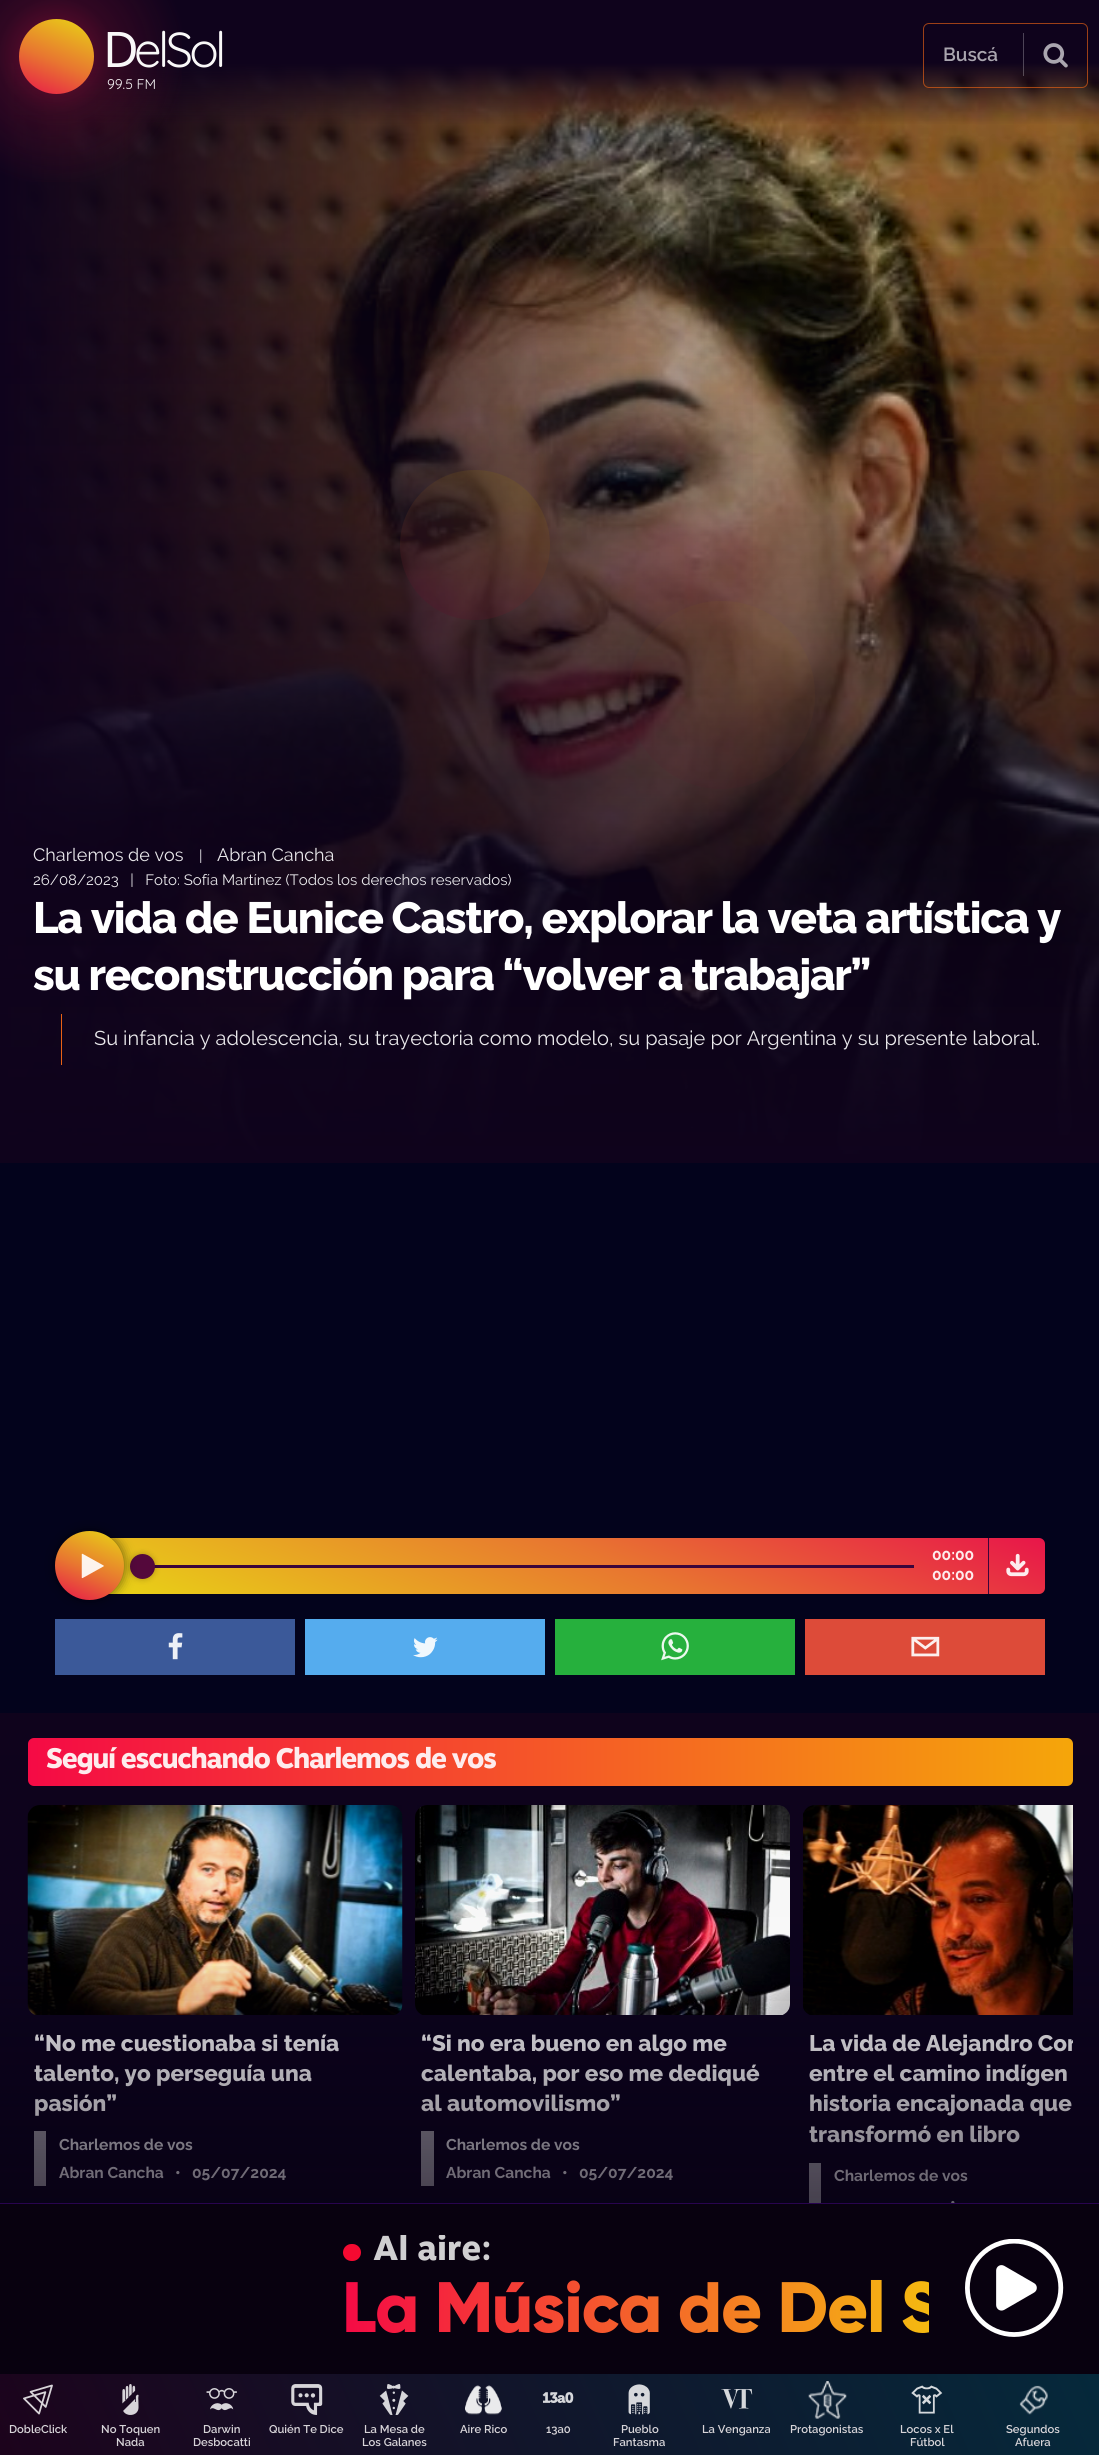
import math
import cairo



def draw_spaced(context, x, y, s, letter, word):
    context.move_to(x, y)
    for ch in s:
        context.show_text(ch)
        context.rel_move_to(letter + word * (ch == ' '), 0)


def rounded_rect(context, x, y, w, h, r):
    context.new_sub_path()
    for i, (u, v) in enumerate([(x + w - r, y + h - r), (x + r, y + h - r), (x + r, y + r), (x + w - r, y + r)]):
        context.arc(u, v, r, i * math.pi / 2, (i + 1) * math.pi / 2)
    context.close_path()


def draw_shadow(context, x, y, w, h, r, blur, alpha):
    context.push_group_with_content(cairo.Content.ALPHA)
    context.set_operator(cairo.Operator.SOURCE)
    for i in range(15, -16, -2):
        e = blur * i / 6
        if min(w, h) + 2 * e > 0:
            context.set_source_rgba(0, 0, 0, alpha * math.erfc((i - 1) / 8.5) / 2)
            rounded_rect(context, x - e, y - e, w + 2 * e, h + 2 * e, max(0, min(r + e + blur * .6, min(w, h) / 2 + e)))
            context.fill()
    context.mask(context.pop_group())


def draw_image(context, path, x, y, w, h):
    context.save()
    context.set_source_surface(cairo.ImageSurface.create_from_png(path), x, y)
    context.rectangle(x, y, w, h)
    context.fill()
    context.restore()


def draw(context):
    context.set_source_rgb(3 / 255, 3 / 255, 28 / 255)
    context.paint()
    context.set_source_rgb(15 / 255, 3 / 255, 28 / 255)
    context.rectangle(0, 0, 1099, 63)
    context.fill()
    draw_image(context, "images/2.png", 5, 63, 1094, 1094)
    gradient = cairo.LinearGradient(0, 613, 770, 613)
    gradient.add_color_stop_rgba(0, 15 / 255, 3 / 255, 28 / 255, 1)
    gradient.add_color_stop_rgba(1, 15 / 255, 3 / 255, 28 / 255, 0)
    context.set_source(gradient)
    context.rectangle(0, 63, 753, 1094)
    context.fill()
    gradient = cairo.LinearGradient(550, 125, 550, 63)
    gradient.add_color_stop_rgba(0, 15 / 255, 3 / 255, 28 / 255, 0)
    gradient.add_color_stop_rgba(1, 15 / 255, 3 / 255, 28 / 255, 1)
    context.set_source(gradient)
    context.rectangle(14, 63, 1085, 61)
    context.fill()
    gradient = cairo.RadialGradient(56, 56, 0, 56, 56, 131)
    gradient.add_color_stop_rgba(0, 232 / 255, 21 / 255, 74 / 255, 0.56)
    gradient.add_color_stop_rgba(0.45, 122 / 255, 17 / 255, 47 / 255, 0.31)
    gradient.add_color_stop_rgba(1, 122 / 255, 17 / 255, 47 / 255, 0)
    context.set_source(gradient)
    context.rectangle(0, 0, 182, 182)
    context.fill()
    gradient = cairo.LinearGradient(37, 102, 75, 11)
    gradient.add_color_stop_rgba(0, 232 / 255, 21 / 255, 74 / 255, 1)
    gradient.add_color_stop_rgba(0.45, 232 / 255, 118 / 255, 48 / 255, 1)
    gradient.add_color_stop_rgba(1, 232 / 255, 214 / 255, 21 / 255, 1)
    context.set_source(gradient)
    context.arc(56.5, 56.5, 37.5, 0, 2 * math.pi)
    context.fill()
    rounded_rect(context, 923.5, 23.5, 164, 64, 5.5)
    context.set_source_rgba(232 / 255, 98 / 255, 21 / 255, 0.65)
    context.set_line_width(1)
    context.stroke()
    context.set_source_rgba(1, 1, 1, 0.26)
    context.rectangle(1023, 33, 1, 43)
    context.fill()
    draw_image(context, "images/1.png", 1043, 43, 25, 25)
    gradient = cairo.LinearGradient(550, 1163, 550, 228)
    gradient.add_color_stop_rgba(0, 15 / 255, 3 / 255, 28 / 255, 1)
    gradient.add_color_stop_rgba(1, 15 / 255, 3 / 255, 28 / 255, 0)
    context.set_source(gradient)
    context.rectangle(0, 248, 1099, 915)
    context.fill()
    context.set_source_rgb(232 / 255, 98 / 255, 21 / 255)
    context.rectangle(61, 1014, 1, 51)
    context.fill()
    gradient = cairo.LinearGradient(482, 1762, 649, 1369)
    gradient.add_color_stop_rgba(0, 232 / 255, 214 / 255, 21 / 255, 1)
    gradient.add_color_stop_rgba(0.55, 232 / 255, 118 / 255, 48 / 255, 1)
    gradient.add_color_stop_rgba(1, 232 / 255, 21 / 255, 74 / 255, 1)
    context.set_source(gradient)
    rounded_rect(context, 86, 1538, 959, 56, 6)
    context.fill()
    context.set_source_rgb(59 / 255, 5 / 255, 59 / 255)
    context.rectangle(154, 1565, 760, 3)
    context.fill()
    context.set_source_rgb(0, 0, 0)
    draw_shadow(context, 130, 1554, 25, 25, 12.5, 3, 0.26)
    context.set_source_rgb(84 / 255, 8 / 255, 59 / 255)
    context.arc(142.5, 1566.5, 12.5, 0, 2 * math.pi)
    context.fill()
    context.set_source_rgb(0, 0, 0)
    draw_shadow(context, 55, 1531, 69, 69, 34.5, 6, 0.56)
    gradient = cairo.LinearGradient(72, 1607, 107, 1524)
    gradient.add_color_stop_rgba(0, 232 / 255, 21 / 255, 74 / 255, 1)
    gradient.add_color_stop_rgba(0.45, 232 / 255, 118 / 255, 48 / 255, 1)
    gradient.add_color_stop_rgba(1, 232 / 255, 214 / 255, 21 / 255, 1)
    context.set_source(gradient)
    context.arc(89.5, 1565.5, 34.5, 0, 2 * math.pi)
    context.fill()
    draw_image(context, "images/3.png", 81, 1553, 23, 26)
    context.set_source_rgb(59 / 255, 5 / 255, 59 / 255)
    context.rectangle(988, 1538, 1, 56)
    context.fill()
    draw_image(context, "images/4.png", 1006, 1553, 23, 24)
    context.set_source_rgb(59 / 255, 89 / 255, 153 / 255)
    context.rectangle(55, 1619, 240, 56)
    context.fill()
    draw_image(context, "images/5.png", 168, 1633, 15, 27)
    context.set_source_rgb(85 / 255, 172 / 255, 238 / 255)
    context.rectangle(305, 1619, 240, 56)
    context.fill()
    draw_image(context, "images/6.png", 413, 1637, 25, 21)
    context.set_source_rgb(38 / 255, 176 / 255, 61 / 255)
    context.rectangle(555, 1619, 240, 56)
    context.fill()
    draw_image(context, "images/7.png", 661, 1632, 28, 29)
    context.set_source_rgb(221 / 255, 75 / 255, 57 / 255)
    context.rectangle(805, 1619, 240, 56)
    context.fill()
    draw_image(context, "images/8.png", 911, 1636, 29, 21)
    gradient = cairo.LinearGradient(550, 1713, 550, 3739)
    gradient.add_color_stop_rgba(0, 15 / 255, 3 / 255, 28 / 255, 1)
    gradient.add_color_stop_rgba(0.5, 3 / 255, 3 / 255, 28 / 255, 1)
    gradient.add_color_stop_rgba(1, 3 / 255, 3 / 255, 28 / 255, 1)
    context.set_source(gradient)
    context.rectangle(0, 1713, 1099, 490)
    context.fill()
    gradient = cairo.LinearGradient(28, 1762, 1073, 1762)
    gradient.add_color_stop_rgba(0, 245 / 255, 10 / 255, 69 / 255, 1)
    gradient.add_color_stop_rgba(1, 245 / 255, 166 / 255, 10 / 255, 1)
    context.set_source(gradient)
    rounded_rect(context, 28, 1738, 1045, 48, 6)
    context.fill()
    draw_image(context, "images/9.png", 27, 1805, 376, 210)
    gradient = cairo.LinearGradient(215, 1805, 215, 2230)
    gradient.add_color_stop_rgba(0, 0, 0, 0, 0.04)
    gradient.add_color_stop_rgba(1, 0, 0, 0, 0)
    context.set_source(gradient)
    context.rectangle(28, 1805, 374, 196)
    context.fill()
    context.set_source_rgb(135 / 255, 132 / 255, 144 / 255)
    context.rectangle(34, 2131, 12, 55)
    context.fill()
    draw_image(context, "images/10.png", 415, 1805, 375, 210)
    gradient = cairo.LinearGradient(603, 1805, 603, 2230)
    gradient.add_color_stop_rgba(0, 0, 0, 0, 0.04)
    gradient.add_color_stop_rgba(1, 0, 0, 0, 0)
    context.set_source(gradient)
    context.rectangle(417, 1805, 373, 196)
    context.fill()
    context.set_source_rgb(135 / 255, 132 / 255, 144 / 255)
    context.rectangle(421, 2131, 13, 55)
    context.fill()
    draw_image(context, "images/11.png", 803, 1805, 270, 210)
    gradient = cairo.LinearGradient(990, 1805, 990, 2230)
    gradient.add_color_stop_rgba(0, 0, 0, 0, 0.04)
    gradient.add_color_stop_rgba(1, 0, 0, 0, 0)
    context.set_source(gradient)
    context.rectangle(807, 1805, 266, 196)
    context.fill()
    context.set_source_rgb(135 / 255, 132 / 255, 144 / 255)
    context.rectangle(809, 2163, 12, 40)
    context.fill()
    gradient = cairo.LinearGradient(69, 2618, 1031, 2210)
    gradient.add_color_stop_rgba(0, 28 / 255, 3 / 255, 28 / 255, 1)
    gradient.add_color_stop_rgba(1, 5 / 255, 41 / 255, 59 / 255, 1)
    context.set_source(gradient)
    context.rectangle(0, 2374, 1099, 81)
    context.fill()
    draw_image(context, "images/13.png", 23, 2384, 30, 31)
    draw_image(context, "images/14.png", 122, 2384, 17, 31)
    draw_image(context, "images/15.png", 206, 2388, 31, 23)
    draw_image(context, "images/16.png", 291, 2384, 32, 31)
    draw_image(context, "images/17.png", 379, 2384, 30, 31)
    draw_image(context, "images/18.png", 465, 2385, 37, 30)
    draw_image(context, "images/19.png", 542, 2392, 32, 11)
    draw_image(context, "images/20.png", 628, 2384, 22, 31)
    draw_image(context, "images/21.png", 721, 2389, 32, 20)
    draw_image(context, "images/22.png", 808, 2381, 39, 38)
    draw_image(context, "images/23.png", 911, 2385, 32, 29)
    draw_image(context, "images/24.png", 1019, 2385, 29, 30)
    context.select_font_face("Noto Sans")
    context.set_font_size(49)
    context.set_source_rgb(249 / 255, 248 / 255, 248 / 255)
    draw_spaced(context, 103, 67, "D", -3.75, 0)
    context.select_font_face("Quicksand")
    draw_spaced(context, 134, 67, "elSol", -3.75, 0)
    context.set_font_size(14)
    context.move_to(107, 89)
    context.show_text("99.5 FM")
    context.select_font_face("Raleway SemiBold")
    context.set_font_size(19)
    context.set_source_rgb(170 / 255, 166 / 255, 175 / 255)
    context.move_to(943, 61)
    context.show_text("Buscá")
    context.select_font_face("Raleway")
    context.set_font_size(18)
    context.set_source_rgb(233 / 255, 232 / 255, 235 / 255)
    context.move_to(33, 861)
    context.show_text("Charlemos de vos")
    context.set_font_size(15)
    context.move_to(199, 861)
    context.show_text("|")
    context.set_font_size(18)
    context.move_to(217, 861)
    context.show_text("Abran Cancha")
    context.set_font_size(15)
    context.move_to(33, 885)
    context.show_text("26/08/2023   |   Foto: Sofía Martínez (Todos los derechos reservados)")
    context.select_font_face("Raleway ExtraBold")
    context.set_font_size(43.75)
    context.set_source_rgb(1, 1, 1)
    draw_spaced(context, 33, 933, "La vida de Eunice Castro, explorar la veta artística y", -1.25, 0)
    draw_spaced(context, 33, 990, "su reconstrucción para “volver a trabajar”", -1.25, 0)
    context.select_font_face("Raleway")
    context.set_font_size(20)
    context.set_source_rgb(233 / 255, 232 / 255, 235 / 255)
    context.move_to(94, 1045)
    context.show_text("Su infancia y adolescencia, su trayectoria como modelo, su pasaje por Argentina y su presente laboral.")
    context.select_font_face("Raleway", cairo.FontSlant.NORMAL, cairo.FontWeight.BOLD)
    context.set_font_size(15.6)
    context.set_source_rgb(254 / 255, 236 / 255, 237 / 255)
    context.move_to(932, 1560)
    context.show_text("00:00")
    context.move_to(932, 1580)
    context.show_text("00:00")
    context.select_font_face("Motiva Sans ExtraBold")
    context.set_font_size(28.1)
    draw_spaced(context, 46, 1768, "Seguí escuchando Charlemos de vos", -1.25, 0)
    context.select_font_face("Raleway ExtraBold")
    context.set_font_size(22.5)
    context.set_source_rgb(233 / 255, 232 / 255, 235 / 255)
    context.move_to(34, 2051)
    context.show_text("“No me cuestionaba si tenía")
    context.move_to(34, 2081)
    context.show_text("talento, yo perseguía una")
    context.move_to(34, 2111)
    context.show_text("pasión”")
    context.select_font_face("Raleway", cairo.FontSlant.NORMAL, cairo.FontWeight.BOLD)
    context.set_font_size(15.6)
    context.set_source_rgb(196 / 255, 195 / 255, 201 / 255)
    context.move_to(59, 2150)
    context.show_text("Charlemos de vos")
    context.move_to(59, 2178)
    context.show_text("Abran Cancha")
    context.move_to(175, 2178)
    context.show_text("•")
    context.move_to(192, 2178)
    context.show_text("05/07/2024")
    context.select_font_face("Raleway ExtraBold")
    context.set_font_size(22.5)
    context.set_source_rgb(233 / 255, 232 / 255, 235 / 255)
    context.move_to(421, 2051)
    context.show_text("“Si no era bueno en algo me")
    context.move_to(421, 2081)
    context.show_text("calentaba, por eso me dediqué")
    context.move_to(421, 2111)
    context.show_text("al automovilismo”")
    context.select_font_face("Raleway", cairo.FontSlant.NORMAL, cairo.FontWeight.BOLD)
    context.set_font_size(15.6)
    context.set_source_rgb(196 / 255, 195 / 255, 201 / 255)
    context.move_to(446, 2150)
    context.show_text("Charlemos de vos")
    context.move_to(446, 2178)
    context.show_text("Abran Cancha")
    context.move_to(562, 2178)
    context.show_text("•")
    context.move_to(579, 2178)
    context.show_text("05/07/2024")
    context.save()
    context.rectangle(803, 2029, 270, 187)
    context.clip()
    context.select_font_face("Raleway ExtraBold")
    context.set_font_size(22.5)
    context.set_source_rgb(233 / 255, 232 / 255, 235 / 255)
    context.move_to(809, 2051)
    context.show_text("La vida de Alejandro Cor")
    context.restore()
    context.select_font_face("Raleway ExtraBold")
    context.set_font_size(22.5)
    context.set_source_rgb(233 / 255, 232 / 255, 235 / 255)
    context.move_to(809, 2081)
    context.show_text("entre el camino indígen")
    context.move_to(809, 2111)
    context.show_text("historia encajonada que")
    context.move_to(809, 2142)
    context.show_text("transformó en libro")
    context.select_font_face("Raleway", cairo.FontSlant.NORMAL, cairo.FontWeight.BOLD)
    context.set_font_size(15.6)
    context.set_source_rgb(196 / 255, 195 / 255, 201 / 255)
    context.move_to(834, 2181)
    context.show_text("Charlemos de vos")
    context.move_to(950, 2208)
    context.show_text("•")
    context.set_source_rgb(8 / 255, 1 / 255, 15 / 255)
    context.rectangle(0, 2204, 1099, 170)
    context.fill()
    gradient = cairo.LinearGradient(550, 1956, 550, 2203)
    gradient.add_color_stop_rgba(0, 8 / 255, 1 / 255, 15 / 255, 0)
    gradient.add_color_stop_rgba(1, 8 / 255, 1 / 255, 15 / 255, 0.51)
    context.set_source(gradient)
    context.rectangle(0, 1966, 1099, 237)
    context.fill()
    context.set_source_rgb(40 / 255, 4 / 255, 79 / 255)
    context.rectangle(0, 2203, 1099, 1)
    context.fill()
    context.set_source_rgb(245 / 255, 10 / 255, 49 / 255)
    rounded_rect(context, 343, 2244, 18, 17, 8.5)
    context.fill()
    context.save()
    context.rectangle(343, 2235, 586, 35)
    context.clip()
    context.select_font_face("Motiva Sans ExtraBold")
    context.set_font_size(34.5)
    context.set_source_rgb(208 / 255, 207 / 255, 209 / 255)
    context.move_to(373, 2260)
    context.show_text("Al aire:")
    context.restore()
    context.save()
    context.rectangle(343, 2270, 586, 78)
    context.clip()
    context.select_font_face("Gilroy ExtraBold")
    context.set_font_size(71.25)
    gradient = cairo.LinearGradient(342, 2309, 999, 2309)
    gradient.add_color_stop_rgba(0, 245 / 255, 10 / 255, 69 / 255, 1)
    gradient.add_color_stop_rgba(1, 245 / 255, 206 / 255, 10 / 255, 1)
    context.set_source(gradient)
    draw_spaced(context, 342, 2332, "La Música de Del S", -1.25, 0)
    context.restore()
    draw_image(context, "images/12.png", 965, 2239, 99, 98)
    context.select_font_face("Raleway SemiBold")
    context.set_font_size(11.25)
    context.set_source_rgb(215 / 255, 212 / 255, 216 / 255)
    context.move_to(9, 2433)
    context.show_text("DobleClick")
    context.move_to(101, 2433)
    context.show_text("No Toquen")
    context.move_to(116, 2446)
    context.show_text("Nada")
    context.move_to(203, 2433)
    context.show_text("Darwin")
    context.move_to(193, 2446)
    context.show_text("Desbocatti")
    context.move_to(269, 2433)
    context.show_text("Quién Te Dice")
    context.move_to(364, 2433)
    context.show_text("La Mesa de")
    context.move_to(362, 2446)
    context.show_text("Los Galanes")
    context.move_to(460, 2433)
    context.show_text("Aire Rico")
    context.move_to(546, 2433)
    context.show_text("13a0")
    context.move_to(621, 2433)
    context.show_text("Pueblo")
    context.move_to(613, 2446)
    context.show_text("Fantasma")
    context.move_to(702, 2433)
    context.show_text("La Venganza")
    context.move_to(790, 2433)
    context.show_text("Protagonistas")
    context.move_to(900, 2433)
    context.show_text("Locos x El")
    context.move_to(910, 2446)
    context.show_text("Fútbol")
    context.move_to(1006, 2433)
    context.show_text("Segundos")
    context.move_to(1015, 2446)
    context.show_text("Afuera")


surface = cairo.ImageSurface(cairo.Format.RGB24, 1099, 2455)
context = cairo.Context(surface)
options = cairo.FontOptions()
options.set_hint_metrics(cairo.HintMetrics.OFF)
options.set_hint_style(cairo.HintStyle.NONE)
context.set_font_options(options)
context.set_miter_limit(4)
draw(context)
surface.write_to_png("out.png")
